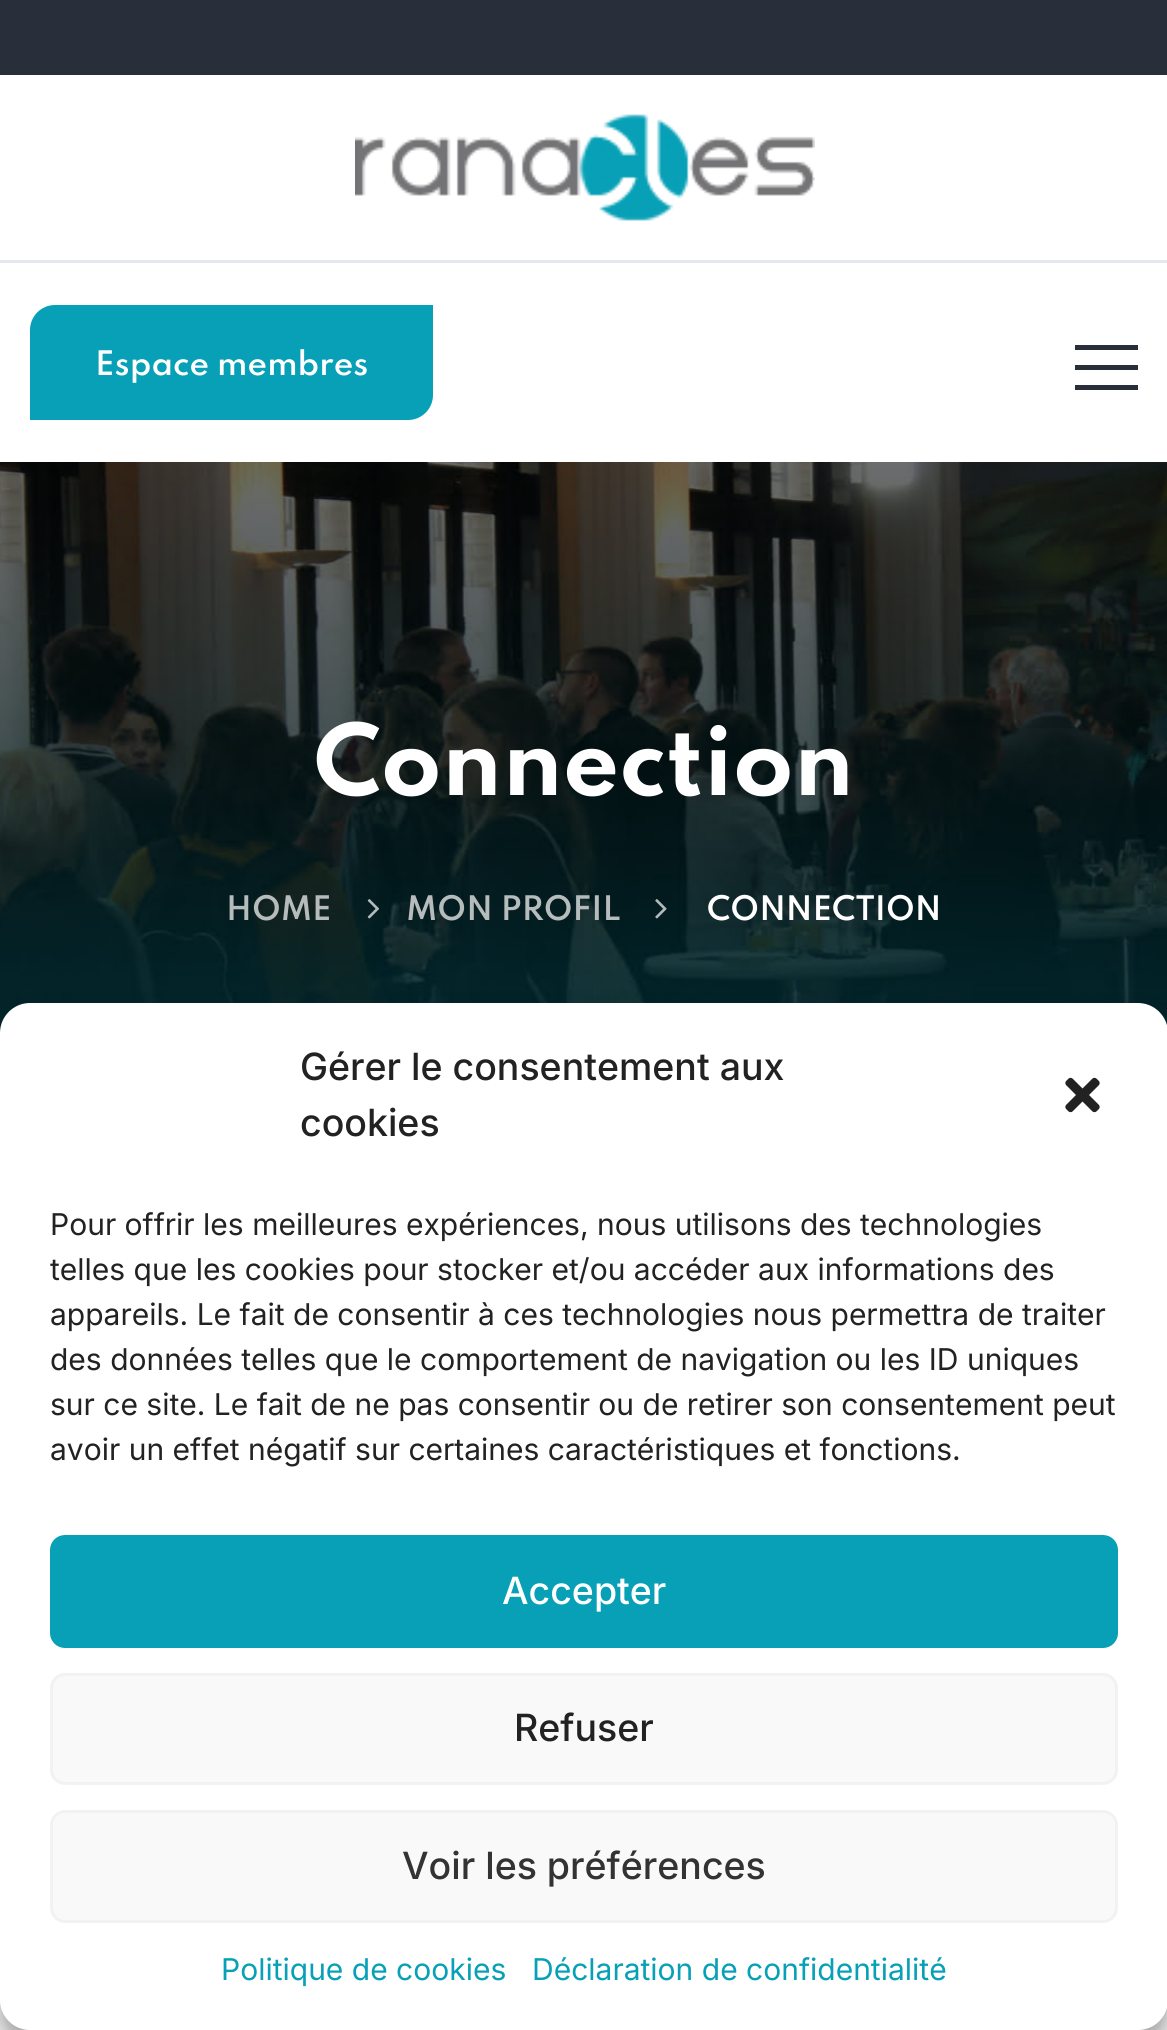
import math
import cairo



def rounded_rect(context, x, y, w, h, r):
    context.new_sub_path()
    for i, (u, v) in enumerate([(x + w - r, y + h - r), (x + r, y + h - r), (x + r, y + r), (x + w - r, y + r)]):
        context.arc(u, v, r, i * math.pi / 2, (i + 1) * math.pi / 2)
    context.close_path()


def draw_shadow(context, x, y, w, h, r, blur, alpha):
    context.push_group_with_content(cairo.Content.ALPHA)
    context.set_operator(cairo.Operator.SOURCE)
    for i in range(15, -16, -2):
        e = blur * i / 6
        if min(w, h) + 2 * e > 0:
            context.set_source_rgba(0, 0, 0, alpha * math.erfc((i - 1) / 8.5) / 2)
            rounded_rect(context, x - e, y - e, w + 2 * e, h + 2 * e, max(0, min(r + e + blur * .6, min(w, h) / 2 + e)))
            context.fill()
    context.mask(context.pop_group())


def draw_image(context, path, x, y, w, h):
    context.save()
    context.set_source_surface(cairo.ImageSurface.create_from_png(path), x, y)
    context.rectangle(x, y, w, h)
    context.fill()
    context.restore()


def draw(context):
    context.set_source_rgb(1, 1, 1)
    context.paint()
    context.set_source_rgb(40 / 255, 47 / 255, 59 / 255)
    context.rectangle(0, 0, 1167, 75)
    context.fill()
    context.set_source_rgb(228 / 255, 231 / 255, 238 / 255)
    context.rectangle(0, 260, 1167, 3)
    context.fill()
    draw_image(context, "images/1.png", 355, 114, 460, 107)
    context.set_source_rgb(7 / 255, 160 / 255, 182 / 255)
    context.new_path()
    context.move_to(55, 306.5)
    context.line_to(431.5, 306.5)
    context.line_to(431.5, 395)
    context.curve_to(431.5, 408, 421, 418.5, 408, 418.5)
    context.line_to(31.5, 418.5)
    context.line_to(31.5, 330)
    context.curve_to(31.5, 317, 42, 306.5, 55, 306.5)
    context.close_path()
    context.fill_preserve()
    context.set_line_width(3)
    context.stroke()
    context.set_source_rgb(40 / 255, 47 / 255, 59 / 255)
    context.rectangle(1075, 345, 63, 5)
    context.fill()
    context.rectangle(1075, 365, 63, 5)
    context.fill()
    context.rectangle(1075, 385, 63, 5)
    context.fill()
    draw_image(context, "images/2.png", 0, 462, 1167, 571)
    draw_image(context, "images/3.png", 367, 899, 13, 20)
    draw_image(context, "images/4.png", 655, 899, 12, 20)
    context.set_source_rgb(0, 0, 0)
    draw_shadow(context, 0, 1018, 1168, 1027, 30, 7.5, 0.23)
    draw_shadow(context, 0, 1028, 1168, 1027, 30, 25, 0.19)
    context.set_source_rgb(1, 1, 1)
    rounded_rect(context, 0, 1003, 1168, 1027, 30)
    context.fill()
    draw_image(context, "images/5.png", 1065, 1077, 35, 36)
    context.set_source_rgb(7 / 255, 160 / 255, 182 / 255)
    rounded_rect(context, 51.5, 1536.5, 1065, 110, 13.5)
    context.fill_preserve()
    context.stroke()
    context.set_source_rgb(249 / 255, 249 / 255, 249 / 255)
    rounded_rect(context, 51.5, 1674.5, 1065, 109, 13.5)
    context.fill_preserve()
    context.set_source_rgb(242 / 255, 242 / 255, 242 / 255)
    context.stroke()
    context.set_source_rgb(249 / 255, 249 / 255, 249 / 255)
    rounded_rect(context, 51.5, 1811.5, 1065, 110, 13.5)
    context.fill_preserve()
    context.set_source_rgb(242 / 255, 242 / 255, 242 / 255)
    context.stroke()
    context.select_font_face("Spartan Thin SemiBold")
    context.set_font_size(30)
    context.set_source_rgb(1, 1, 1)
    context.move_to(95, 375)
    context.show_text("Espace membres")
    context.select_font_face("Spartan Thin", cairo.FontSlant.NORMAL, cairo.FontWeight.BOLD)
    context.set_font_size(87.5)
    context.move_to(314, 795)
    context.show_text("Connection")
    context.select_font_face("Spartan Thin SemiBold")
    context.set_font_size(30)
    context.set_source_rgb(182 / 255, 188 / 255, 188 / 255)
    context.move_to(226, 920)
    context.show_text("HOME")
    context.move_to(406, 920)
    context.show_text("MON PROFIL")
    context.set_source_rgb(1, 1, 1)
    context.move_to(707, 920)
    context.show_text("CONNECTION")
    context.select_font_face("Inter Medium")
    context.set_font_size(37.5)
    context.set_source_rgb(34 / 255, 34 / 255, 34 / 255)
    context.move_to(300, 1080)
    context.show_text("Gérer le consentement aux")
    context.move_to(300, 1136)
    context.show_text("cookies")
    context.select_font_face("Inter")
    context.set_font_size(30)
    context.move_to(50, 1235)
    context.show_text("Pour offrir les meilleures expériences, nous utilisons des technologies")
    context.move_to(50, 1280)
    context.show_text("telles que les cookies pour stocker et/ou accéder aux informations des")
    context.move_to(50, 1325)
    context.show_text("appareils. Le fait de consentir à ces technologies nous permettra de traiter")
    context.move_to(50, 1370)
    context.show_text("des données telles que le comportement de navigation ou les ID uniques")
    context.move_to(50, 1415)
    context.show_text("sur ce site. Le fait de ne pas consentir ou de retirer son consentement peut")
    context.move_to(50, 1460)
    context.show_text("avoir un effet négatif sur certaines caractéristiques et fonctions.")
    context.select_font_face("Inter Medium")
    context.set_font_size(37.5)
    context.set_source_rgb(1, 1, 1)
    context.move_to(502, 1604)
    context.show_text("Accepter")
    context.set_source_rgb(34 / 255, 34 / 255, 34 / 255)
    context.move_to(514, 1741)
    context.show_text("Refuser")
    context.set_source_rgb(51 / 255, 51 / 255, 51 / 255)
    context.move_to(402, 1879)
    context.show_text("Voir les préférences")
    context.select_font_face("Inter")
    context.set_font_size(30)
    context.set_source_rgb(7 / 255, 160 / 255, 182 / 255)
    context.move_to(221, 1980)
    context.show_text("Politique de cookies")
    context.move_to(532, 1980)
    context.show_text("Déclaration de confidentialité")


surface = cairo.ImageSurface(cairo.Format.RGB24, 1167, 2030)
context = cairo.Context(surface)
options = cairo.FontOptions()
options.set_hint_metrics(cairo.HintMetrics.OFF)
options.set_hint_style(cairo.HintStyle.NONE)
context.set_font_options(options)
context.set_miter_limit(4)
draw(context)
surface.write_to_png("out.png")
